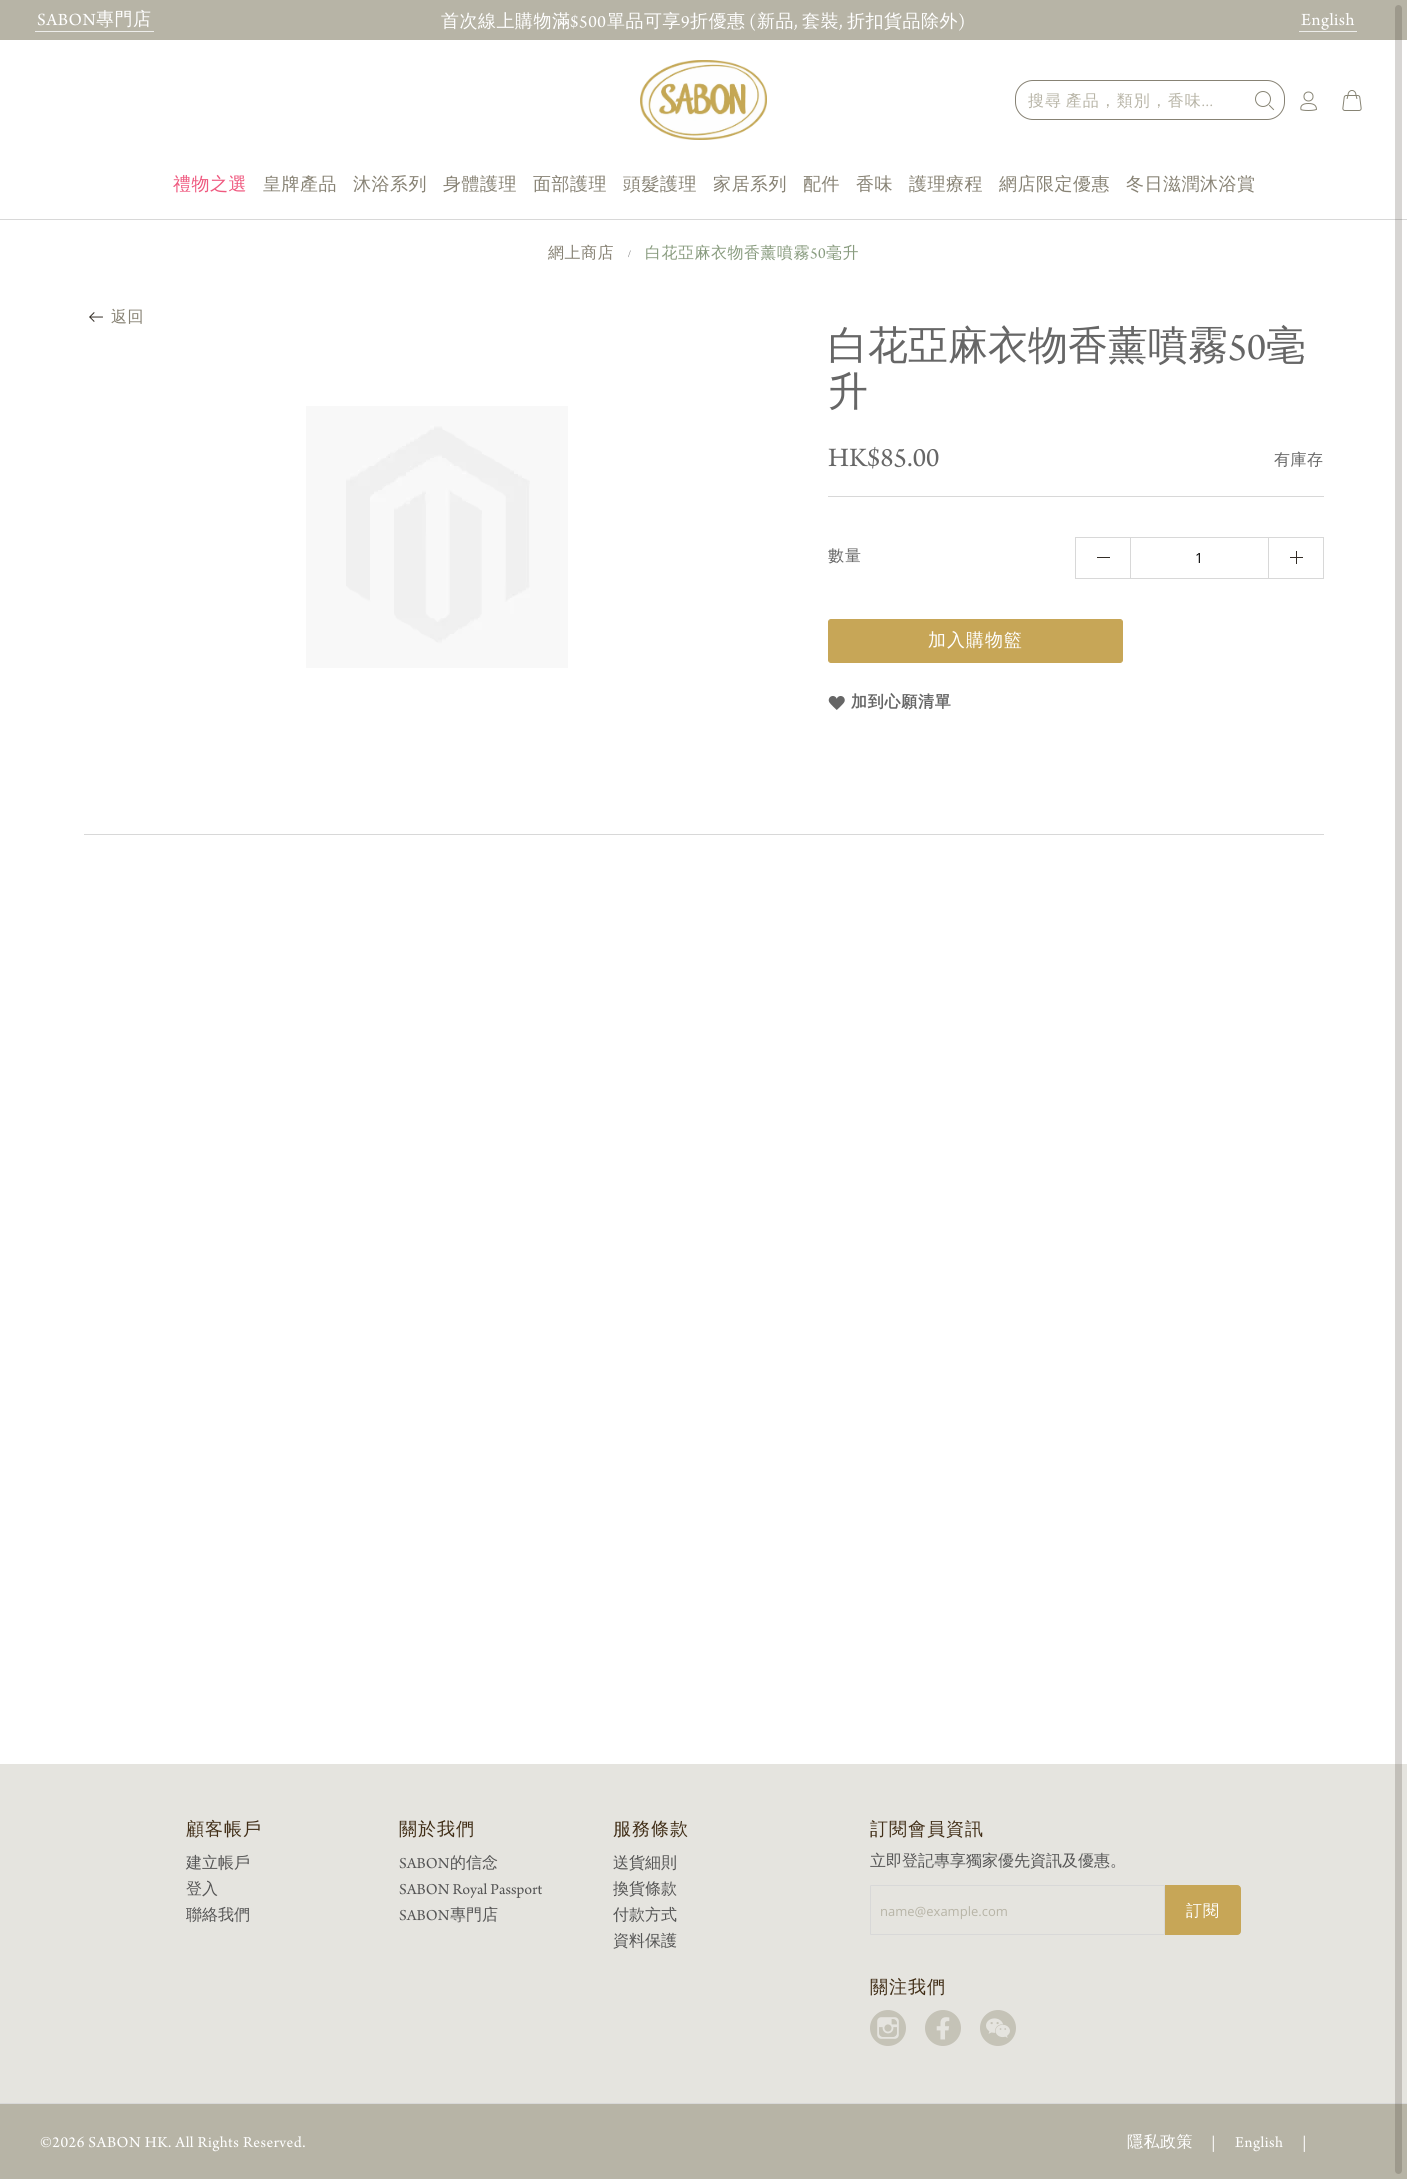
import math
import cairo



def draw_spaced(context, x, y, s, letter, word):
    context.move_to(x, y)
    for ch in s:
        context.show_text(ch)
        context.rel_move_to(letter + word * (ch == ' '), 0)


def rounded_rect(context, x, y, w, h, r):
    context.new_sub_path()
    for i, (u, v) in enumerate([(x + w - r, y + h - r), (x + r, y + h - r), (x + r, y + r), (x + w - r, y + r)]):
        context.arc(u, v, r, i * math.pi / 2, (i + 1) * math.pi / 2)
    context.close_path()


def draw_image(context, path, x, y, w, h):
    context.save()
    context.set_source_surface(cairo.ImageSurface.create_from_png(path), x, y)
    context.rectangle(x, y, w, h)
    context.fill()
    context.restore()


def draw(context):
    context.set_source_rgb(1, 1, 1)
    context.paint()
    context.set_source_rgb(183 / 255, 180 / 255, 166 / 255)
    context.rectangle(0, 0, 1407, 40)
    context.fill()
    context.set_source_rgb(237 / 255, 237 / 255, 235 / 255)
    context.rectangle(35, 31, 119, 1)
    context.fill()
    context.rectangle(1299, 31, 58, 1)
    context.fill()
    draw_image(context, "images/1.png", 640, 60, 127, 80)
    rounded_rect(context, 1015.5, 80.5, 269, 39, 17.5)
    context.set_source_rgb(135 / 255, 130 / 255, 116 / 255)
    context.set_line_width(1)
    context.stroke()
    context.new_path()
    context.move_to(1269.5, 105.5)
    context.line_to(1273.5, 109.5)
    context.set_source_rgb(135 / 255, 132 / 255, 116 / 255)
    context.set_line_cap(cairo.LineCap.SQUARE)
    context.stroke()
    context.arc(1263, 99, 7.5, 0, 2 * math.pi)
    context.set_line_cap(cairo.LineCap.BUTT)
    context.stroke()
    draw_image(context, "images/2.png", 1300, 91, 17, 20)
    draw_image(context, "images/3.png", 1342, 90, 20, 21)
    context.set_source_rgb(216 / 255, 216 / 255, 216 / 255)
    context.rectangle(0, 219, 1407, 1)
    context.fill()
    draw_image(context, "images/4.png", 89, 312, 14, 10)
    draw_image(context, "images/5.png", 306, 406, 262, 262)
    context.rectangle(828, 496, 496, 1)
    context.fill()
    context.rectangle(1075.5, 537.5, 248, 41)
    context.stroke()
    context.rectangle(1130, 538, 1, 40)
    context.fill()
    context.set_source_rgb(51 / 255, 45 / 255, 38 / 255)
    context.rectangle(1097, 557, 13, 1)
    context.fill()
    context.set_source_rgb(216 / 255, 216 / 255, 216 / 255)
    context.rectangle(1268, 538, 1, 40)
    context.fill()
    draw_image(context, "images/6.png", 1290, 551, 13, 13)
    context.set_source_rgb(199 / 255, 166 / 255, 87 / 255)
    rounded_rect(context, 828.5, 619.5, 294, 43, 2.5)
    context.fill_preserve()
    context.stroke()
    draw_image(context, "images/7.png", 828, 696, 17, 14)
    context.set_source_rgb(216 / 255, 216 / 255, 216 / 255)
    context.rectangle(84, 834, 1240, 1)
    context.fill()
    context.set_source_rgb(229 / 255, 228 / 255, 223 / 255)
    context.rectangle(0, 1764, 1407, 339)
    context.fill()
    rounded_rect(context, 870.5, 1885.5, 294, 49, 0.5)
    context.set_source_rgb(216 / 255, 216 / 255, 216 / 255)
    context.stroke()
    context.set_source_rgb(199 / 255, 166 / 255, 87 / 255)
    context.new_path()
    context.move_to(1165.5, 1885.5)
    context.line_to(1237, 1885.5)
    context.curve_to(1239, 1885.5, 1240.5, 1887, 1240.5, 1889)
    context.line_to(1240.5, 1931)
    context.curve_to(1240.5, 1933, 1239, 1934.5, 1237, 1934.5)
    context.line_to(1165.5, 1934.5)
    context.close_path()
    context.fill_preserve()
    context.stroke()
    draw_image(context, "images/8.png", 870, 2010, 36, 36)
    draw_image(context, "images/9.png", 925, 2010, 36, 36)
    draw_image(context, "images/10.png", 980, 2010, 36, 36)
    context.set_source_rgb(183 / 255, 180 / 255, 166 / 255)
    context.rectangle(0, 2104, 1407, 75)
    context.fill()
    context.set_source_rgb(216 / 255, 216 / 255, 216 / 255)
    context.rectangle(0, 2103, 1407, 1)
    context.fill()
    context.set_source_rgba(57 / 255, 46 / 255, 35 / 255, 0.2)
    rounded_rect(context, 1395, 5, 7, 2169, 3.5)
    context.fill()
    context.select_font_face("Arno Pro")
    context.set_font_size(18)
    context.set_source_rgb(1, 1, 1)
    draw_spaced(context, 37, 25, "SABON", 0.5, 0)
    context.select_font_face("WenQuanYi Zen Hei Medium")
    draw_spaced(context, 96, 25, "專門店", 0.5, 0)
    draw_spaced(context, 441, 27, "首次線上購物滿", 0.5, 0)
    context.select_font_face("Arno Pro")
    draw_spaced(context, 570, 27, "$500", 0.5, 0)
    context.select_font_face("WenQuanYi Zen Hei Medium")
    draw_spaced(context, 607, 27, "單品可享", 0.5, 0)
    context.select_font_face("Arno Pro")
    draw_spaced(context, 681, 27, "9", 0.5, 0)
    context.select_font_face("WenQuanYi Zen Hei Medium")
    draw_spaced(context, 690, 27, "折優惠", 0.5, 0)
    context.select_font_face("Arno Pro")
    draw_spaced(context, 749, 27, "(", 0.5, 0)
    context.select_font_face("WenQuanYi Zen Hei Medium")
    draw_spaced(context, 757, 27, "新品", 0.5, 0)
    context.select_font_face("Arno Pro")
    draw_spaced(context, 794, 27, ",", 0.5, 0)
    context.select_font_face("WenQuanYi Zen Hei Medium")
    draw_spaced(context, 802, 27, "套裝", 0.5, 0)
    context.select_font_face("Arno Pro")
    draw_spaced(context, 839, 27, ",", 0.5, 0)
    context.select_font_face("WenQuanYi Zen Hei Medium")
    draw_spaced(context, 847, 27, "折扣貨品除外", 0.5, 0)
    context.select_font_face("Arno Pro")
    draw_spaced(context, 958, 27, ")", 0.5, 0)
    draw_spaced(context, 1301, 25, "English", 0.5, 0)
    context.select_font_face("WenQuanYi Zen Hei Medium")
    context.set_font_size(16)
    context.set_source_rgb(183 / 255, 180 / 255, 166 / 255)
    draw_spaced(context, 1028, 106, "搜尋 產品，類別，香味", 1, -2)
    context.select_font_face("Arno Pro", cairo.FontSlant.ITALIC)
    draw_spaced(context, 1202, 106, "...", 1, 0)
    context.select_font_face("WenQuanYi Zen Hei Medium")
    context.set_font_size(18)
    context.set_source_rgb(239 / 255, 89 / 255, 127 / 255)
    draw_spaced(context, 173, 190, "禮物之選", 0.5, 0)
    context.set_source_rgb(135 / 255, 130 / 255, 116 / 255)
    draw_spaced(context, 263, 190, "皇牌產品", 0.5, 0)
    draw_spaced(context, 353, 190, "沐浴系列", 0.5, 0)
    draw_spaced(context, 443, 190, "身體護理", 0.5, 0)
    draw_spaced(context, 533, 190, "面部護理", 0.5, 0)
    draw_spaced(context, 623, 190, "頭髮護理", 0.5, 0)
    draw_spaced(context, 713, 190, "家居系列", 0.5, 0)
    draw_spaced(context, 803, 190, "配件", 0.5, 0)
    draw_spaced(context, 856, 190, "香味", 0.5, 0)
    draw_spaced(context, 909, 190, "護理療程", 0.5, 0)
    draw_spaced(context, 999, 190, "網店限定優惠", 0.5, 0)
    draw_spaced(context, 1126, 190, "冬日滋潤沐浴賞", 0.5, 0)
    context.set_font_size(16)
    draw_spaced(context, 548, 258, "網上商店", 0.5, 0)
    context.select_font_face("Liberation Serif")
    context.set_font_size(10)
    context.set_source_rgb(112 / 255, 112 / 255, 112 / 255)
    draw_spaced(context, 628, 257, "/", 0.5, 0)
    context.select_font_face("WenQuanYi Zen Hei Medium")
    context.set_font_size(16)
    context.set_source_rgb(137 / 255, 156 / 255, 127 / 255)
    draw_spaced(context, 645, 258, "白花亞麻衣物香薰噴霧", 0.5, 0)
    context.select_font_face("Arno Pro")
    draw_spaced(context, 810, 258, "50", 0.5, 0)
    context.select_font_face("WenQuanYi Zen Hei Medium")
    draw_spaced(context, 826, 258, "毫升", 0.5, 0)
    context.set_source_rgb(135 / 255, 130 / 255, 116 / 255)
    draw_spaced(context, 111, 322, "返回", 0.5, 0)
    context.set_font_size(40)
    context.set_source_rgb(102 / 255, 102 / 255, 102 / 255)
    context.move_to(828, 359)
    context.show_text("白花亞麻衣物香薰噴霧")
    context.select_font_face("Arno Pro")
    context.move_to(1228, 359)
    context.show_text("50")
    context.select_font_face("WenQuanYi Zen Hei Medium")
    context.move_to(1266, 359)
    context.show_text("毫")
    context.move_to(828, 405)
    context.show_text("升")
    context.select_font_face("Arno Pro")
    context.set_font_size(28)
    context.move_to(828, 466)
    context.show_text("HK$85.00")
    context.select_font_face("WenQuanYi Zen Hei Medium")
    context.set_font_size(16)
    draw_spaced(context, 1274, 465, "有庫存", 0.5, 0)
    draw_spaced(context, 828, 561, "數量", 1, 0)
    context.select_font_face("Open Sans")
    context.set_font_size(14)
    context.set_source_rgb(0, 0, 0)
    context.move_to(1195, 563)
    context.show_text("1")
    context.select_font_face("WenQuanYi Zen Hei Medium")
    context.set_font_size(18)
    context.set_source_rgb(1, 1, 1)
    draw_spaced(context, 928, 646, "加入購物籃", 1, 0)
    context.select_font_face("WenQuanYi Zen Hei", cairo.FontSlant.NORMAL, cairo.FontWeight.BOLD)
    context.set_font_size(16)
    context.set_source_rgb(102 / 255, 102 / 255, 102 / 255)
    draw_spaced(context, 851, 707, "加到心願清單", 0.75, 0)
    context.select_font_face("WenQuanYi Zen Hei Medium")
    context.set_font_size(18)
    context.set_source_rgb(65 / 255, 46 / 255, 23 / 255)
    draw_spaced(context, 186, 1835, "顧客帳戶", 1, 0)
    context.set_font_size(16)
    context.set_source_rgb(85 / 255, 85 / 255, 85 / 255)
    context.move_to(186, 1868)
    context.show_text("建立帳戶")
    context.move_to(186, 1894)
    context.show_text("登入")
    context.move_to(186, 1920)
    context.show_text("聯絡我們")
    context.set_font_size(18)
    context.set_source_rgb(65 / 255, 46 / 255, 23 / 255)
    draw_spaced(context, 399, 1835, "關於我們", 1, 0)
    context.select_font_face("Arno Pro")
    context.set_font_size(16)
    context.set_source_rgb(85 / 255, 85 / 255, 85 / 255)
    context.move_to(399, 1868)
    context.show_text("SABON")
    context.select_font_face("WenQuanYi Zen Hei Medium")
    context.move_to(450, 1868)
    context.show_text("的信念")
    context.select_font_face("Arno Pro")
    context.move_to(399, 1894)
    context.show_text("SABON Royal Passport")
    context.move_to(399, 1920)
    context.show_text("SABON")
    context.select_font_face("WenQuanYi Zen Hei Medium")
    context.move_to(450, 1920)
    context.show_text("專門店")
    context.set_font_size(18)
    context.set_source_rgb(65 / 255, 46 / 255, 23 / 255)
    draw_spaced(context, 613, 1835, "服務條款", 1, 0)
    context.set_font_size(16)
    context.set_source_rgb(85 / 255, 85 / 255, 85 / 255)
    context.move_to(613, 1868)
    context.show_text("送貨細則")
    context.move_to(613, 1894)
    context.show_text("換貨條款")
    context.move_to(613, 1920)
    context.show_text("付款方式")
    context.move_to(613, 1946)
    context.show_text("資料保護")
    context.set_font_size(18)
    context.set_source_rgb(65 / 255, 46 / 255, 23 / 255)
    draw_spaced(context, 870, 1835, "訂閱會員資訊", 1, 0)
    context.set_font_size(16)
    context.set_source_rgb(85 / 255, 85 / 255, 85 / 255)
    context.move_to(870, 1866)
    context.show_text("立即登記專享獨家優先資訊及優惠。")
    context.select_font_face("Open Sans")
    context.set_font_size(13)
    context.set_source_rgb(183 / 255, 180 / 255, 166 / 255)
    context.move_to(880, 1916)
    context.show_text("name@example.com")
    context.select_font_face("WenQuanYi Zen Hei Medium")
    context.set_font_size(16)
    context.set_source_rgb(1, 1, 1)
    draw_spaced(context, 1186, 1916, "訂閱", 1, 0)
    context.set_font_size(18)
    context.set_source_rgb(65 / 255, 46 / 255, 23 / 255)
    draw_spaced(context, 870, 1993, "關注我們", 1, 0)
    context.select_font_face("Arno Pro")
    context.set_font_size(16)
    context.set_source_rgb(1, 1, 1)
    draw_spaced(context, 40, 2147, "©2026 SABON HK. All Rights Reserved.", 0.5, 0)
    context.select_font_face("WenQuanYi Zen Hei Medium")
    draw_spaced(context, 1127, 2147, "隱私政策", 0.5, 0)
    context.select_font_face("Arno Pro")
    draw_spaced(context, 1211, 2147, "|", 0.5, 0)
    draw_spaced(context, 1235, 2147, "English", 0.5, 0)
    draw_spaced(context, 1302, 2147, "|", 0.5, 0)


surface = cairo.ImageSurface(cairo.Format.RGB24, 1407, 2179)
context = cairo.Context(surface)
options = cairo.FontOptions()
options.set_hint_metrics(cairo.HintMetrics.OFF)
options.set_hint_style(cairo.HintStyle.NONE)
context.set_font_options(options)
context.set_miter_limit(4)
draw(context)
surface.write_to_png("out.png")
